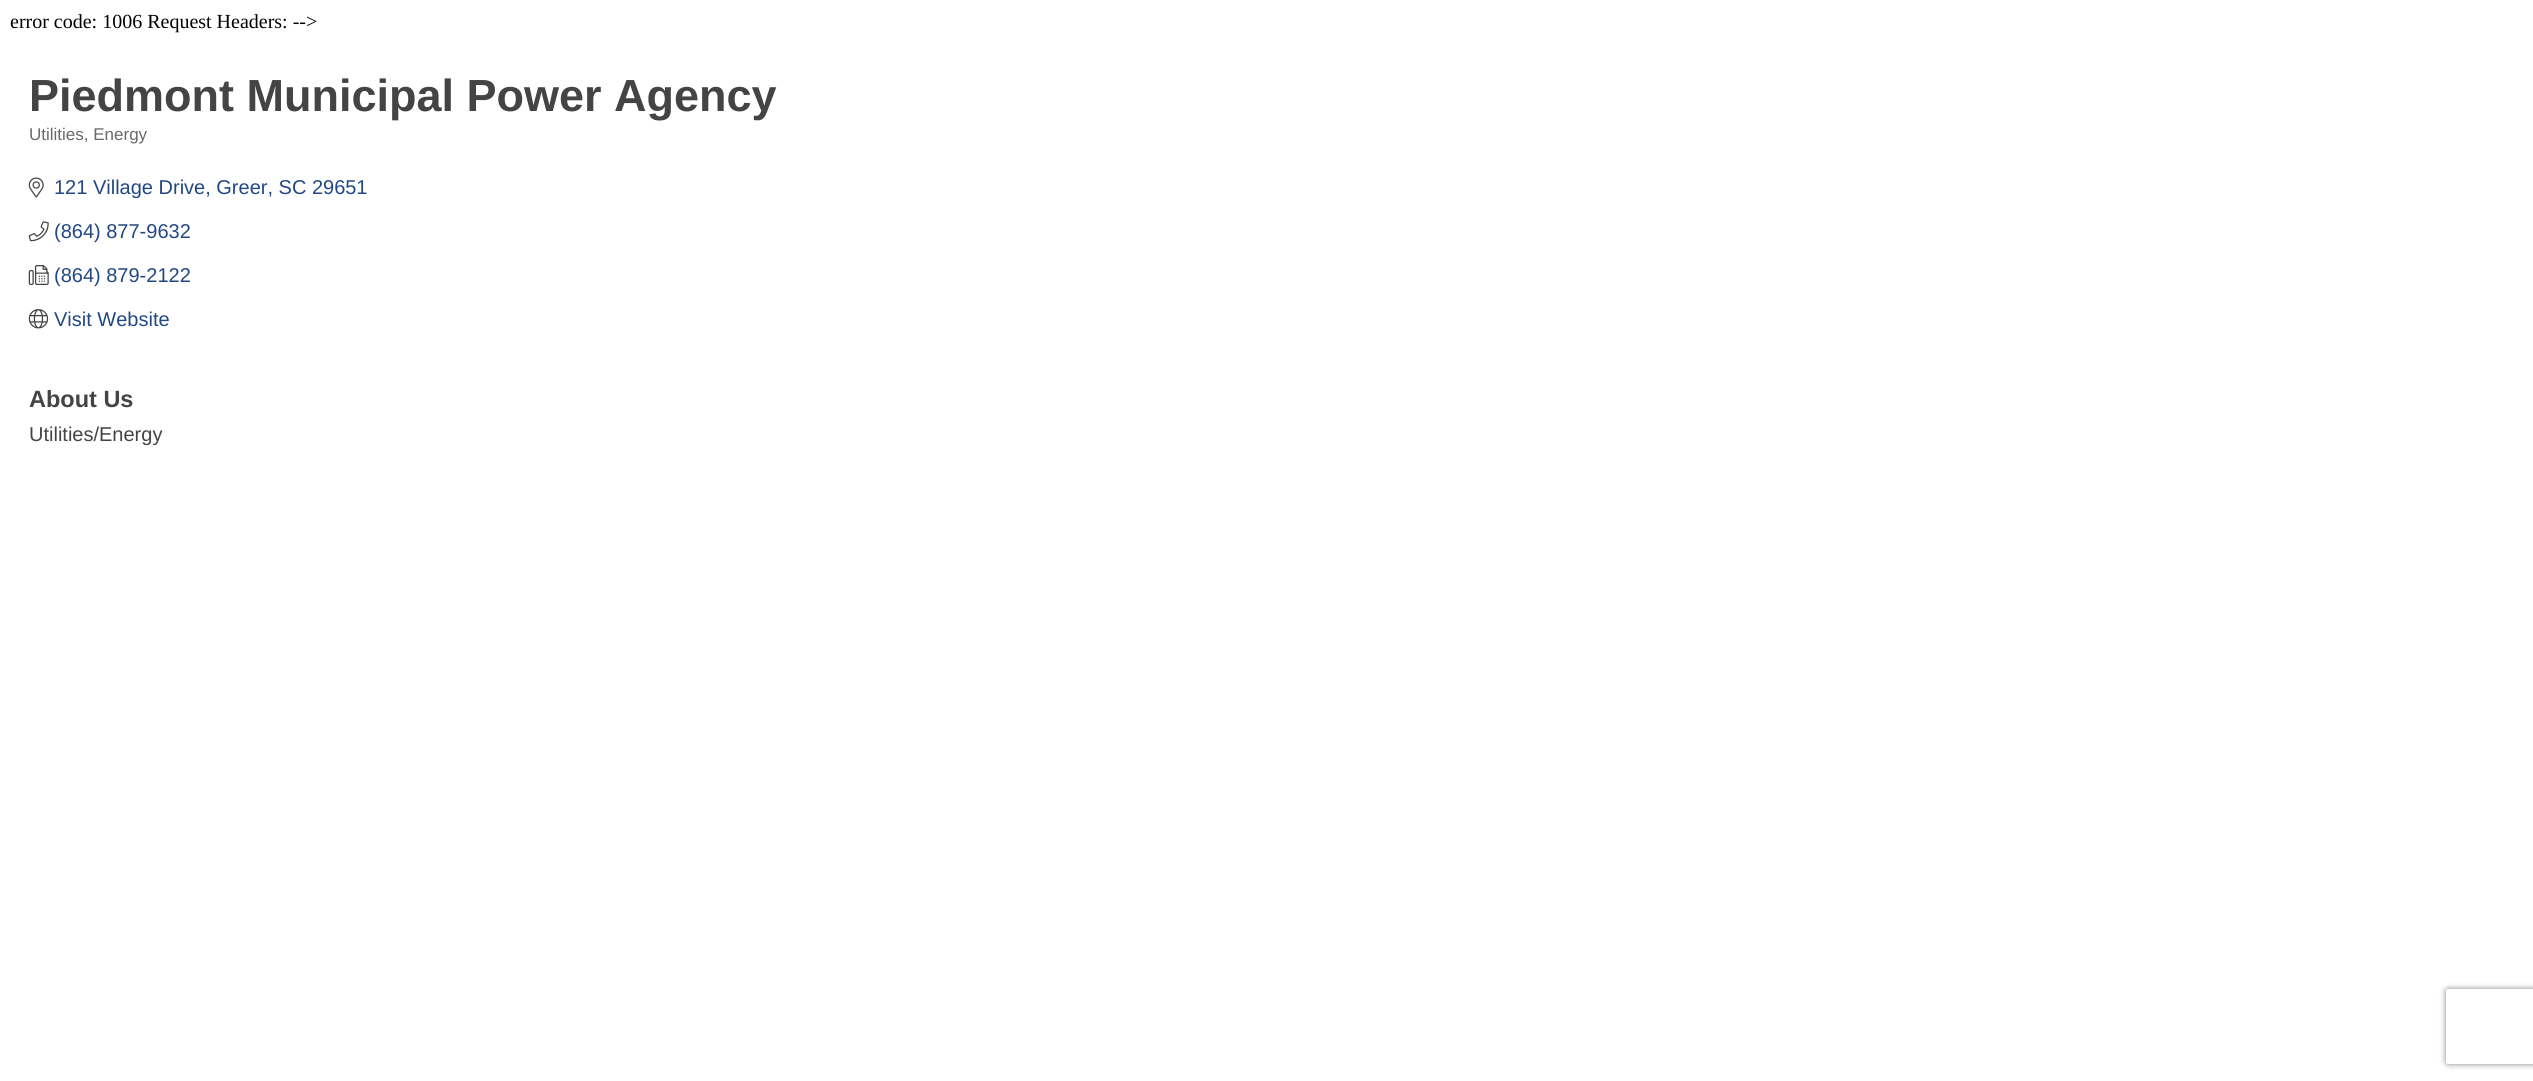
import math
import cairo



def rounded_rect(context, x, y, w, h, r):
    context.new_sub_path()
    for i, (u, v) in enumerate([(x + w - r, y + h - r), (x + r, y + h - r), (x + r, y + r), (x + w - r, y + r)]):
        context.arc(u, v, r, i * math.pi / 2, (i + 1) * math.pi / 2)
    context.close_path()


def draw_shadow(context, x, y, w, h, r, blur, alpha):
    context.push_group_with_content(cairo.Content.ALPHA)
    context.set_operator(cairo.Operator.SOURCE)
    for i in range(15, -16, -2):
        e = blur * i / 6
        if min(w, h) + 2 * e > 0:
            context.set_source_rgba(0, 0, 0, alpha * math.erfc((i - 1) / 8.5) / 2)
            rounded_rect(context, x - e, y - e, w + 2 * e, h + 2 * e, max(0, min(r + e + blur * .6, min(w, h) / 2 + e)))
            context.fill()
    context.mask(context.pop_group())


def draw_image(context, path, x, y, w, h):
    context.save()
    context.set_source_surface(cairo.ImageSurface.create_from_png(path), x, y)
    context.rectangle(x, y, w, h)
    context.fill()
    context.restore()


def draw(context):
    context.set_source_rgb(1, 1, 1)
    context.paint()
    draw_image(context, "images/1.png", 28, 177, 16, 21)
    draw_image(context, "images/2.png", 28, 221, 21, 21)
    draw_image(context, "images/3.png", 28, 265, 21, 20)
    draw_image(context, "images/4.png", 28, 309, 21, 20)
    context.save()
    context.set_fill_rule(cairo.FillRule.EVEN_ODD)
    context.new_path()
    context.move_to(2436, 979)
    context.line_to(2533, 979)
    context.line_to(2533, 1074)
    context.line_to(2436, 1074)
    context.close_path()
    context.move_to(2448.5, 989)
    context.line_to(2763.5, 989)
    context.curve_to(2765, 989, 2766, 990, 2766, 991.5)
    context.line_to(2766, 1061.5)
    context.curve_to(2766, 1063, 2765, 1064, 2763.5, 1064)
    context.line_to(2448.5, 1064)
    context.curve_to(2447, 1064, 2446, 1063, 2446, 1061.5)
    context.line_to(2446, 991.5)
    context.curve_to(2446, 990, 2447, 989, 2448.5, 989)
    context.close_path()
    context.clip()
    context.set_source_rgb(128 / 255, 128 / 255, 128 / 255)
    draw_shadow(context, 2446, 989, 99, 75, 2.5, 3, 1)
    context.restore()
    context.select_font_face("Liberation Serif")
    context.set_font_size(20)
    context.set_source_rgb(0, 0, 0)
    context.move_to(10, 28)
    context.show_text("error code: 1006 Request Headers: -->")
    context.select_font_face("Liberation Sans", cairo.FontSlant.NORMAL, cairo.FontWeight.BOLD)
    context.set_font_size(45)
    context.set_source_rgb(68 / 255, 68 / 255, 68 / 255)
    context.move_to(29, 111)
    context.show_text("Piedmont Municipal Power Agency")
    context.select_font_face("Liberation Sans")
    context.set_font_size(17)
    context.set_source_rgb(105 / 255, 105 / 255, 105 / 255)
    context.move_to(29, 140)
    context.show_text("Utilities, Energy")
    context.set_font_size(20)
    context.set_source_rgb(34 / 255, 72 / 255, 132 / 255)
    context.move_to(54, 194)
    context.show_text("121 Village Drive, Greer, SC 29651")
    context.move_to(54, 238)
    context.show_text("(864) 877-9632")
    context.move_to(54, 282)
    context.show_text("(864) 879-2122")
    context.move_to(54, 326)
    context.show_text("Visit Website")
    context.select_font_face("Liberation Sans", cairo.FontSlant.NORMAL, cairo.FontWeight.BOLD)
    context.set_font_size(23.5)
    context.set_source_rgb(68 / 255, 68 / 255, 68 / 255)
    context.move_to(29, 407)
    context.show_text("About Us")
    context.select_font_face("Liberation Sans")
    context.set_font_size(20)
    context.move_to(29, 441)
    context.show_text("Utilities/Energy")


surface = cairo.ImageSurface(cairo.Format.RGB24, 2533, 1081)
context = cairo.Context(surface)
options = cairo.FontOptions()
options.set_hint_metrics(cairo.HintMetrics.OFF)
options.set_hint_style(cairo.HintStyle.NONE)
context.set_font_options(options)
context.set_miter_limit(4)
draw(context)
surface.write_to_png("out.png")
